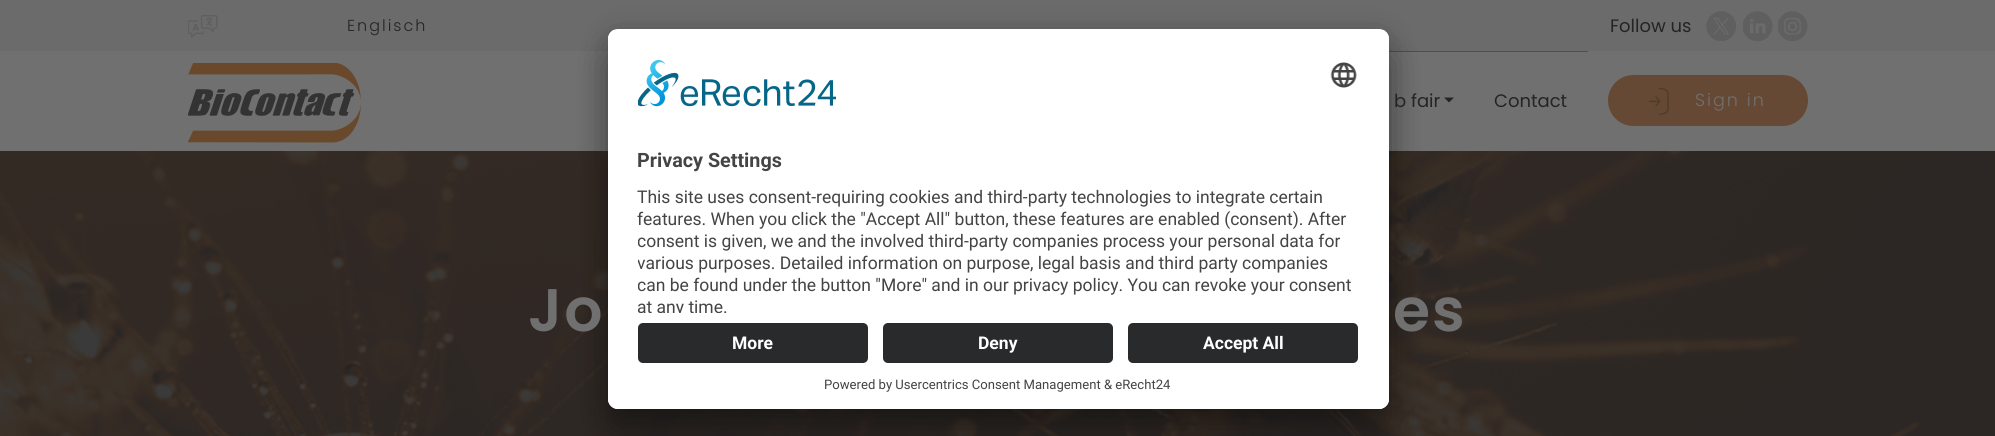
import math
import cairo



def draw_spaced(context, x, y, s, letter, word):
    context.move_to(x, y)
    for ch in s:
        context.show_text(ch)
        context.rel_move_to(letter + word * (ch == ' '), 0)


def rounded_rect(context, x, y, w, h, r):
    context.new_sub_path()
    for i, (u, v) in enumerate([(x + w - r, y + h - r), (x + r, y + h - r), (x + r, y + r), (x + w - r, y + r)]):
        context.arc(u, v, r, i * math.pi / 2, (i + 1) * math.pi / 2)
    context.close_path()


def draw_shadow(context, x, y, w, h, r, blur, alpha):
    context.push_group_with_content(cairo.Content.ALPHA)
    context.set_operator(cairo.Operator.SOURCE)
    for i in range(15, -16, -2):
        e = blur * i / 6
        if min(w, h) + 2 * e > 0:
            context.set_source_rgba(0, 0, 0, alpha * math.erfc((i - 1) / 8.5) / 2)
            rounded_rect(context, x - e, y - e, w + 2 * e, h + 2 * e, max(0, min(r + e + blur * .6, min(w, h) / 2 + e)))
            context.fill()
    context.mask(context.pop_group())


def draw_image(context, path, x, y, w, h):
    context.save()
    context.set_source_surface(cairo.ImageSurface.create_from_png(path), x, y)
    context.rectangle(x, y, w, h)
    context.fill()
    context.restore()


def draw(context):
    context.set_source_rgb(1, 1, 1)
    context.paint()
    context.set_source_rgb(107 / 255, 107 / 255, 107 / 255)
    context.rectangle(0, 0, 1995, 51)
    context.fill()
    draw_image(context, "images/1.png", 188, 15, 30, 23)
    draw_image(context, "images/2.png", 1706, 11, 30, 30)
    draw_image(context, "images/3.png", 1743, 11, 30, 30)
    draw_image(context, "images/4.png", 1778, 11, 30, 30)
    context.set_source_rgb(112 / 255, 112 / 255, 112 / 255)
    context.rectangle(0, 51, 1995, 100)
    context.fill()
    draw_image(context, "images/5.png", 188, 63, 173, 80)
    context.set_source_rgb(101 / 255, 73 / 255, 52 / 255)
    context.rectangle(1389, 51, 199, 1)
    context.fill()
    context.set_source_rgb(36 / 255, 36 / 255, 36 / 255)
    context.new_path()
    context.move_to(1444, 97.5)
    context.line_to(1454, 97.5)
    context.line_to(1449, 102.5)
    context.close_path()
    context.fill()
    context.set_source_rgb(101 / 255, 73 / 255, 52 / 255)
    rounded_rect(context, 1608, 75, 200, 51, 25.5)
    context.fill()
    draw_image(context, "images/6.png", 1649, 88, 20, 27)
    draw_image(context, "images/7.png", 0, 151, 1995, 285)
    context.set_source_rgb(0, 0, 0)
    draw_shadow(context, 608, 54, 781, 380, 10, 17.5, 0.3)
    draw_shadow(context, 608, 35, 781, 380, 10, 16, 0.22)
    context.set_source_rgb(1, 1, 1)
    rounded_rect(context, 608, 29, 781, 380, 10)
    context.fill()
    context.save()
    rounded_rect(context, 608, 29, 781, 380, 10)
    context.clip()
    context.new_path()
    context.move_to(618, 29)
    context.line_to(1379, 29)
    context.curve_to(1384.5, 29, 1389, 33.5, 1389, 39)
    context.line_to(1389, 313)
    context.line_to(608, 313)
    context.line_to(608, 39)
    context.curve_to(608, 33.5, 612.5, 29, 618, 29)
    context.close_path()
    context.clip()
    context.rectangle(608, 30, 781, 283)
    context.fill()
    context.restore()
    draw_image(context, "images/8.png", 638, 60, 198, 47)
    draw_image(context, "images/9.png", 1330, 62, 27, 26)
    context.new_path()
    context.move_to(608, 313)
    context.line_to(1389, 313)
    context.line_to(1389, 399)
    context.curve_to(1389, 404.5, 1384.5, 409, 1379, 409)
    context.line_to(618, 409)
    context.curve_to(612.5, 409, 608, 404.5, 608, 399)
    context.close_path()
    context.fill()
    context.set_source_rgb(41 / 255, 42 / 255, 43 / 255)
    rounded_rect(context, 638, 323, 230, 40, 5)
    context.fill()
    rounded_rect(context, 883, 323, 230, 40, 5)
    context.fill()
    rounded_rect(context, 1128, 323, 230, 40, 5)
    context.fill()
    context.select_font_face("Poppins Light")
    context.set_font_size(16)
    context.set_source_rgb(36 / 255, 36 / 255, 36 / 255)
    draw_spaced(context, 347, 31, "Englisch", 2, 0)
    context.select_font_face("Poppins")
    context.set_font_size(18)
    context.move_to(1610, 32)
    context.show_text("Follow us")
    context.move_to(1394, 107)
    context.show_text("b fair")
    context.move_to(1494, 107)
    context.show_text("Contact")
    context.select_font_face("Poppins Light")
    context.set_font_size(17.5)
    context.set_source_rgb(112 / 255, 112 / 255, 112 / 255)
    draw_spaced(context, 1695, 106, "Sign in", 2, 0)
    context.select_font_face("Poppins SemiBold")
    context.set_font_size(60)
    draw_spaced(context, 528, 331, "Jo", 2, 0)
    draw_spaced(context, 1393, 331, "es", 2, 0)
    context.select_font_face("Roboto", cairo.FontSlant.NORMAL, cairo.FontWeight.BOLD)
    context.set_font_size(19.75)
    context.set_source_rgb(68 / 255, 68 / 255, 68 / 255)
    context.move_to(637, 167)
    context.show_text("Privacy Settings")
    context.select_font_face("Roboto")
    context.set_font_size(17.5)
    context.move_to(637, 203)
    context.show_text("This site uses consent-requiring cookies and third-party technologies to integrate certain")
    context.move_to(637, 225)
    context.show_text("features. When you click the \"Accept All\" button, these features are enabled (consent). After")
    context.save()
    context.rectangle(638, 183, 721, 130)
    context.clip()
    context.move_to(637, 247)
    context.show_text("consent is given, we and the involved third-party companies process your personal data for")
    context.move_to(637, 269)
    context.show_text("various purposes. Detailed information on purpose, legal basis and third party companies")
    context.move_to(637, 291)
    context.show_text("can be found under the button \"More\" and in our privacy policy. You can revoke your consent")
    context.restore()
    context.save()
    context.new_path()
    context.move_to(618, 29)
    context.line_to(1379, 29)
    context.curve_to(1384.5, 29, 1389, 33.5, 1389, 39)
    context.line_to(1389, 313)
    context.line_to(608, 313)
    context.line_to(608, 39)
    context.curve_to(608, 33.5, 612.5, 29, 618, 29)
    context.close_path()
    context.clip()
    context.move_to(637, 313)
    context.show_text("at any time.")
    context.restore()
    context.select_font_face("Roboto", cairo.FontSlant.NORMAL, cairo.FontWeight.BOLD)
    context.set_source_rgb(1, 1, 1)
    context.move_to(732, 349)
    context.show_text("More")
    context.move_to(978, 349)
    context.show_text("Deny")
    context.move_to(1203, 349)
    context.show_text("Accept All")
    context.select_font_face("Roboto")
    context.set_font_size(13.1)
    context.set_source_rgb(68 / 255, 68 / 255, 68 / 255)
    context.move_to(824, 389)
    context.show_text("Powered by Usercentrics Consent Management & eRecht24")


surface = cairo.ImageSurface(cairo.Format.RGB24, 1995, 436)
context = cairo.Context(surface)
options = cairo.FontOptions()
options.set_hint_metrics(cairo.HintMetrics.OFF)
options.set_hint_style(cairo.HintStyle.NONE)
context.set_font_options(options)
context.set_miter_limit(4)
draw(context)
surface.write_to_png("out.png")
